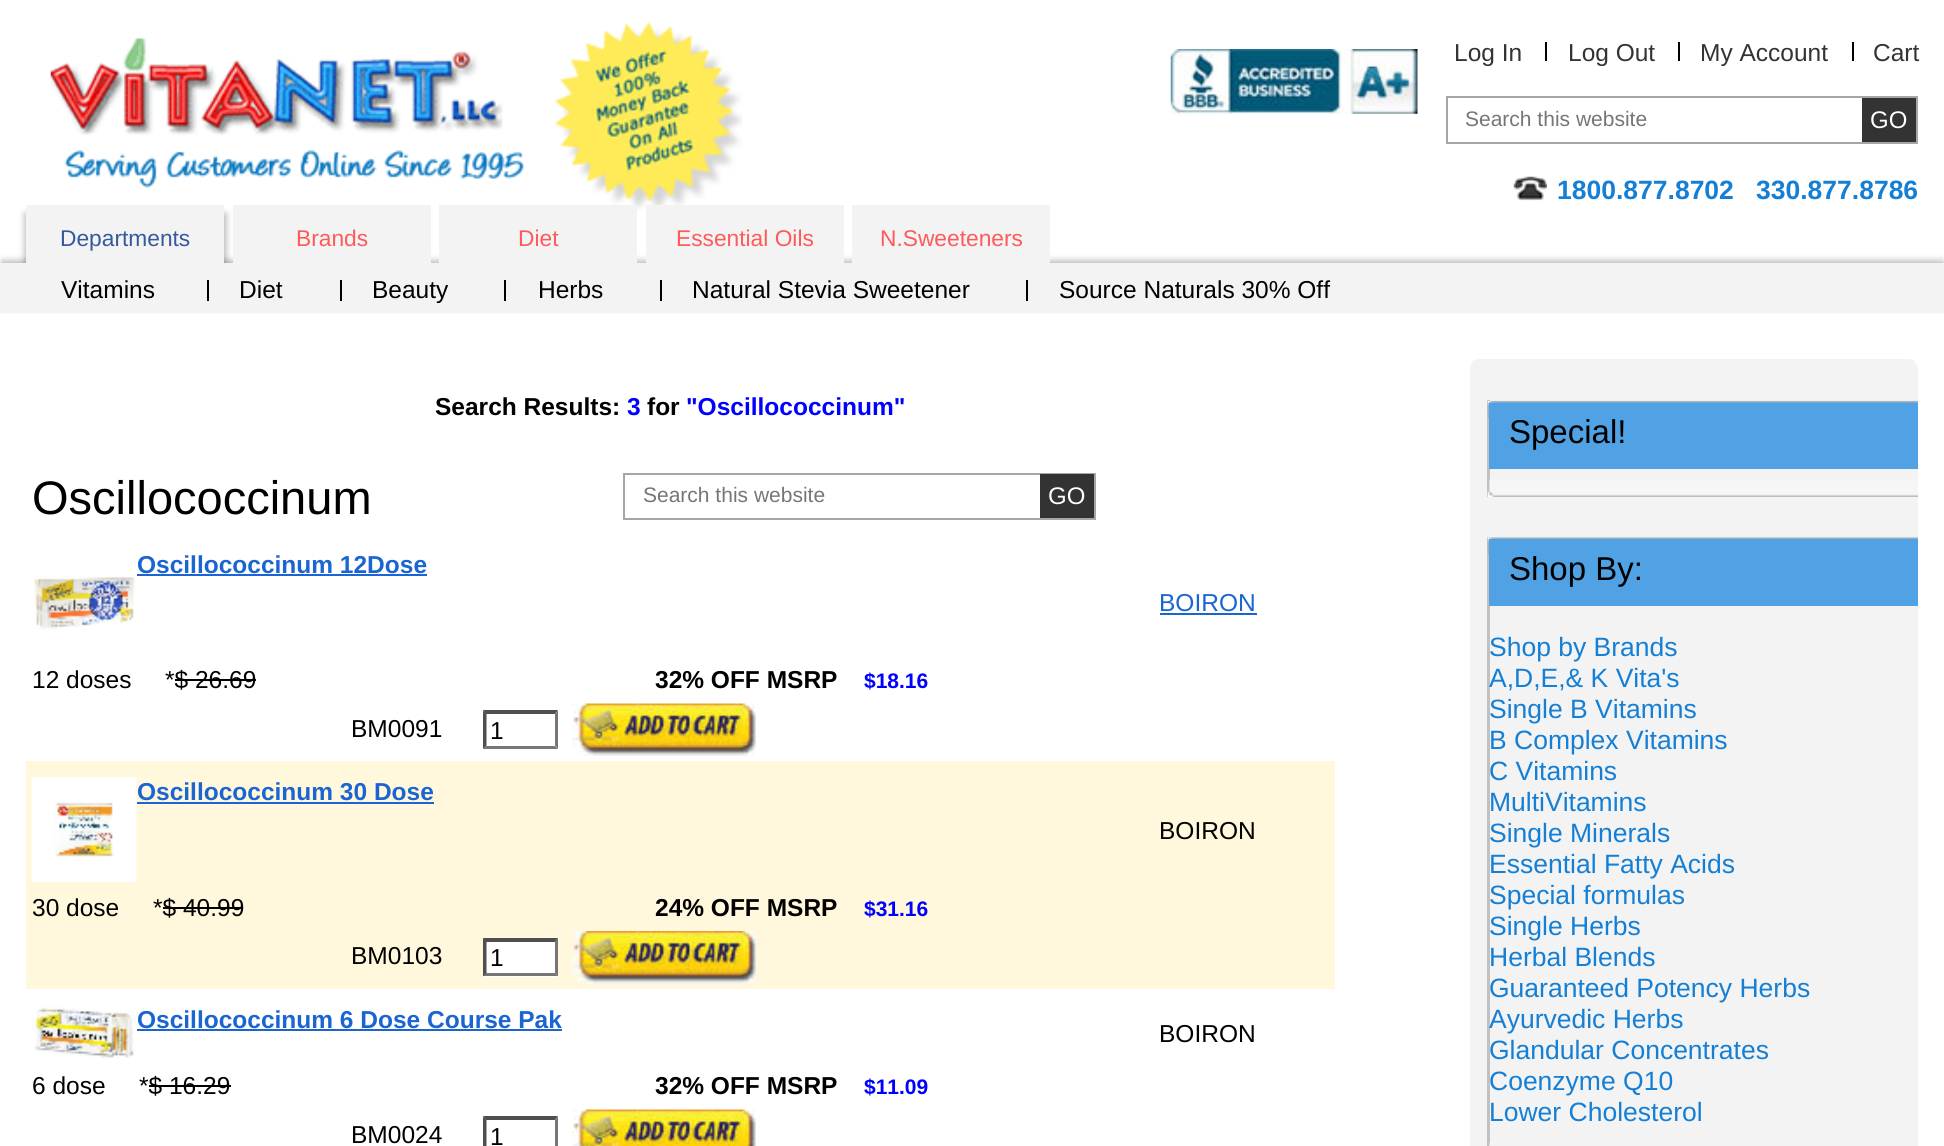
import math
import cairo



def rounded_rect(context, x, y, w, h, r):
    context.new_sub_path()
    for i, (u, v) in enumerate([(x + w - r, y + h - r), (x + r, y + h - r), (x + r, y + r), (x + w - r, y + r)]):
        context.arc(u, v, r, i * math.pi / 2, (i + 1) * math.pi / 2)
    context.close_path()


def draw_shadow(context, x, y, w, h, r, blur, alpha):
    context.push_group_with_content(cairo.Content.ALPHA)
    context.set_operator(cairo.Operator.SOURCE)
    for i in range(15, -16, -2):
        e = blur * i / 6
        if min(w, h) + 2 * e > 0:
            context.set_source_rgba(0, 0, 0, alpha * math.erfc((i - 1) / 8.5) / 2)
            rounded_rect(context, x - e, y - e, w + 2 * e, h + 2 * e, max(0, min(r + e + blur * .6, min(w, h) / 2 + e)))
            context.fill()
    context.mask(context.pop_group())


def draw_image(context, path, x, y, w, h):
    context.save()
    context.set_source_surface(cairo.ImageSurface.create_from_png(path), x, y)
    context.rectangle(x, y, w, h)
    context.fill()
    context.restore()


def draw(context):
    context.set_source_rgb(1, 1, 1)
    context.paint()
    draw_image(context, "images/1.png", 50, 38, 474, 150)
    draw_image(context, "images/2.png", 554, 21, 189, 190)
    draw_image(context, "images/3.png", 1170, 49, 248, 65)
    context.set_source_rgb(0, 0, 0)
    context.rectangle(1545, 42, 2, 19)
    context.fill()
    context.rectangle(1678, 42, 2, 19)
    context.fill()
    context.rectangle(1852, 42, 2, 19)
    context.fill()
    context.rectangle(1447, 97, 470, 46)
    context.set_source_rgb(166 / 255, 166 / 255, 166 / 255)
    context.stroke()
    context.set_source_rgb(51 / 255, 51 / 255, 51 / 255)
    context.rectangle(1862, 98, 54, 44)
    context.fill()
    draw_image(context, "images/4.png", 1513, 176, 34, 25)
    context.set_source_rgb(0, 0, 0)
    draw_shadow(context, 25, 214, 17, 52, 0, 3.5, 0.3)
    draw_shadow(context, 208, 214, 18, 52, 0, 3.5, 0.3)
    draw_shadow(context, 2, 261, 1941, 47, 0, 3.5, 0.3)
    context.set_source_rgb(243 / 255, 243 / 255, 243 / 255)
    context.rectangle(26, 205, 198, 58)
    context.fill()
    context.rectangle(233, 205, 198, 58)
    context.fill()
    context.rectangle(439, 205, 198, 58)
    context.fill()
    context.rectangle(646, 205, 198, 58)
    context.fill()
    context.rectangle(852, 205, 198, 58)
    context.fill()
    context.rectangle(0, 263, 1944, 50)
    context.fill()
    context.set_source_rgb(0, 0, 0)
    context.rectangle(207, 280, 2, 21)
    context.fill()
    context.rectangle(340, 280, 2, 21)
    context.fill()
    context.rectangle(504, 280, 2, 21)
    context.fill()
    context.rectangle(660, 280, 2, 21)
    context.fill()
    context.rectangle(1026, 280, 2, 21)
    context.fill()
    context.rectangle(624, 474, 471, 45)
    context.set_source_rgb(166 / 255, 166 / 255, 166 / 255)
    context.stroke()
    context.set_source_rgb(51 / 255, 51 / 255, 51 / 255)
    context.rectangle(1040, 474, 54, 44)
    context.fill()
    context.set_source_rgb(27 / 255, 101 / 255, 210 / 255)
    context.rectangle(137, 574, 290, 2)
    context.fill()
    draw_image(context, "images/5.png", 34, 576, 101, 54)
    context.rectangle(1160, 613, 97, 2)
    context.fill()
    context.set_source_rgb(0, 0, 0)
    context.rectangle(175, 679, 81, 2)
    context.fill()
    context.set_source_rgb(79 / 255, 79 / 255, 79 / 255)
    context.new_path()
    context.move_to(483, 710)
    context.line_to(558, 710)
    context.line_to(555, 714)
    context.line_to(486, 714)
    context.close_path()
    context.fill()
    context.set_source_rgb(118 / 255, 118 / 255, 118 / 255)
    context.new_path()
    context.move_to(558, 710.5)
    context.line_to(558, 749)
    context.line_to(555, 745.5)
    context.line_to(555, 714)
    context.close_path()
    context.fill()
    context.new_path()
    context.move_to(558, 749)
    context.line_to(483, 749)
    context.line_to(486, 746)
    context.line_to(555, 746)
    context.close_path()
    context.fill()
    context.set_source_rgb(79 / 255, 79 / 255, 79 / 255)
    context.new_path()
    context.move_to(483, 749)
    context.line_to(483, 710.5)
    context.line_to(486.5, 714)
    context.line_to(486.5, 745.5)
    context.close_path()
    context.fill()
    draw_image(context, "images/6.png", 572, 703, 184, 53)
    context.set_source_rgb(1, 248 / 255, 220 / 255)
    context.rectangle(26, 761, 1309, 228)
    context.fill()
    draw_image(context, "images/7.png", 31, 777, 106, 105)
    context.set_source_rgb(27 / 255, 101 / 255, 210 / 255)
    context.rectangle(137, 802, 297, 2)
    context.fill()
    context.set_source_rgb(0, 0, 0)
    context.rectangle(163, 907, 80, 2)
    context.fill()
    context.set_source_rgb(1, 1, 1)
    context.rectangle(483, 938, 75, 39)
    context.fill()
    context.set_source_rgb(79 / 255, 79 / 255, 79 / 255)
    context.new_path()
    context.move_to(483, 938)
    context.line_to(558, 938)
    context.line_to(555, 942)
    context.line_to(486, 942)
    context.close_path()
    context.fill()
    context.set_source_rgb(118 / 255, 118 / 255, 118 / 255)
    context.new_path()
    context.move_to(558, 938)
    context.line_to(558, 976.5)
    context.line_to(555, 973)
    context.line_to(555, 941.5)
    context.close_path()
    context.fill()
    context.new_path()
    context.move_to(558, 976)
    context.line_to(483, 976)
    context.line_to(486, 973)
    context.line_to(555, 973)
    context.close_path()
    context.fill()
    context.set_source_rgb(79 / 255, 79 / 255, 79 / 255)
    context.new_path()
    context.move_to(483, 976.5)
    context.line_to(483, 938)
    context.line_to(486.5, 941.5)
    context.line_to(486.5, 973)
    context.close_path()
    context.fill()
    draw_image(context, "images/8.png", 572, 931, 184, 53)
    draw_image(context, "images/9.png", 31, 1004, 103, 55)
    context.set_source_rgb(27 / 255, 101 / 255, 210 / 255)
    context.rectangle(137, 1029, 425, 2)
    context.fill()
    context.set_source_rgb(0, 0, 0)
    context.rectangle(149, 1085, 82, 2)
    context.fill()
    context.set_source_rgb(79 / 255, 79 / 255, 79 / 255)
    context.new_path()
    context.move_to(483, 1116)
    context.line_to(558, 1116)
    context.line_to(555, 1120)
    context.line_to(486, 1120)
    context.close_path()
    context.fill()
    context.set_source_rgb(118 / 255, 118 / 255, 118 / 255)
    context.new_path()
    context.move_to(558, 1116.5)
    context.line_to(558, 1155)
    context.line_to(555, 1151.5)
    context.line_to(555, 1120)
    context.close_path()
    context.fill()
    context.set_source_rgb(79 / 255, 79 / 255, 79 / 255)
    context.new_path()
    context.move_to(483, 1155)
    context.line_to(483, 1116.5)
    context.line_to(486.5, 1120)
    context.line_to(486.5, 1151.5)
    context.close_path()
    context.fill()
    draw_image(context, "images/10.png", 572, 1109, 184, 37)
    context.set_source_rgb(243 / 255, 243 / 255, 243 / 255)
    rounded_rect(context, 1470, 359, 448, 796, 9)
    context.fill()
    draw_image(context, "images/11.png", 1472, 361, 445, 5)
    context.set_source_rgb(193 / 255, 193 / 255, 193 / 255)
    context.rectangle(1487, 400, 3, 97)
    context.fill()
    draw_image(context, "images/12.png", 1487, 400, 431, 19)
    draw_image(context, "images/13.png", 1487, 479, 431, 18)
    context.set_source_rgb(80 / 255, 162 / 255, 228 / 255)
    context.rectangle(1489, 403, 429, 66)
    context.fill()
    context.set_source_rgb(193 / 255, 193 / 255, 193 / 255)
    context.rectangle(1487, 537, 3, 609)
    context.fill()
    draw_image(context, "images/14.png", 1487, 537, 431, 18)
    draw_image(context, "images/15.png", 1489, 1142, 1, 4)
    context.set_source_rgb(80 / 255, 162 / 255, 228 / 255)
    context.rectangle(1489, 539, 429, 67)
    context.fill()
    context.select_font_face("Liberation Sans")
    context.set_font_size(24.5)
    context.set_source_rgb(51 / 255, 51 / 255, 51 / 255)
    context.move_to(1454, 61)
    context.show_text("Log In")
    context.move_to(1568, 61)
    context.show_text("Log Out")
    context.move_to(1700, 61)
    context.show_text("My Account")
    context.move_to(1873, 61)
    context.show_text("Cart")
    context.set_font_size(21)
    context.set_source_rgb(118 / 255, 118 / 255, 118 / 255)
    context.move_to(1465, 126)
    context.show_text("Search this website")
    context.set_font_size(24)
    context.set_source_rgb(1, 1, 1)
    context.move_to(1870, 128)
    context.show_text("GO")
    context.select_font_face("Liberation Sans", cairo.FontSlant.NORMAL, cairo.FontWeight.BOLD)
    context.set_font_size(26.5)
    context.set_source_rgb(20 / 255, 127 / 255, 212 / 255)
    context.move_to(1557, 199)
    context.show_text("1800.877.8702")
    context.move_to(1756, 199)
    context.show_text("330.877.8786")
    context.select_font_face("Liberation Sans")
    context.set_font_size(22.75)
    context.set_source_rgb(54 / 255, 89 / 255, 156 / 255)
    context.move_to(60, 246)
    context.show_text("Departments")
    context.set_source_rgb(1, 90 / 255, 90 / 255)
    context.move_to(296, 246)
    context.show_text("Brands")
    context.move_to(518, 246)
    context.show_text("Diet")
    context.move_to(676, 246)
    context.show_text("Essential Oils")
    context.move_to(880, 246)
    context.show_text("N.Sweeteners")
    context.set_font_size(24.5)
    context.set_source_rgb(0, 0, 0)
    context.move_to(61, 298)
    context.show_text("Vitamins")
    context.move_to(239, 298)
    context.show_text("Diet")
    context.move_to(372, 298)
    context.show_text("Beauty")
    context.move_to(538, 298)
    context.show_text("Herbs")
    context.move_to(692, 298)
    context.show_text("Natural Stevia Sweetener")
    context.move_to(1059, 298)
    context.show_text("Source Naturals 30% Off")
    context.select_font_face("Liberation Sans", cairo.FontSlant.NORMAL, cairo.FontWeight.BOLD)
    context.move_to(435, 415)
    context.show_text("Search Results:")
    context.set_source_rgb(0, 0, 1)
    context.move_to(627, 415)
    context.show_text("3")
    context.set_source_rgb(0, 0, 0)
    context.move_to(647, 415)
    context.show_text("for")
    context.set_source_rgb(0, 0, 1)
    context.move_to(686, 415)
    context.show_text("\"Oscillococcinum\"")
    context.select_font_face("Liberation Sans")
    context.set_font_size(47)
    context.set_source_rgb(0, 0, 0)
    context.move_to(32, 514)
    context.show_text("Oscillococcinum")
    context.set_font_size(21)
    context.set_source_rgb(118 / 255, 118 / 255, 118 / 255)
    context.move_to(643, 502)
    context.show_text("Search this website")
    context.set_font_size(24)
    context.set_source_rgb(1, 1, 1)
    context.move_to(1048, 504)
    context.show_text("GO")
    context.select_font_face("Liberation Sans", cairo.FontSlant.NORMAL, cairo.FontWeight.BOLD)
    context.set_font_size(24.5)
    context.set_source_rgb(27 / 255, 101 / 255, 210 / 255)
    context.move_to(137, 573)
    context.show_text("Oscillococcinum 12Dose")
    context.select_font_face("Liberation Sans")
    context.move_to(1159, 611)
    context.show_text("BOIRON")
    context.set_source_rgb(0, 0, 0)
    context.move_to(32, 688)
    context.show_text("12 doses")
    context.move_to(165, 688)
    context.show_text("*$ 26.69")
    context.select_font_face("Liberation Sans", cairo.FontSlant.NORMAL, cairo.FontWeight.BOLD)
    context.move_to(655, 688)
    context.show_text("32% OFF MSRP")
    context.set_font_size(21)
    context.set_source_rgb(0, 0, 1)
    context.move_to(864, 688)
    context.show_text("$18.16")
    context.select_font_face("Liberation Sans")
    context.set_font_size(24.5)
    context.set_source_rgb(0, 0, 0)
    context.move_to(351, 737)
    context.show_text("BM0091")
    context.move_to(490, 739)
    context.show_text("1")
    context.select_font_face("Liberation Sans", cairo.FontSlant.NORMAL, cairo.FontWeight.BOLD)
    context.set_source_rgb(27 / 255, 101 / 255, 210 / 255)
    context.move_to(137, 800)
    context.show_text("Oscillococcinum 30 Dose")
    context.select_font_face("Liberation Sans")
    context.set_source_rgb(0, 0, 0)
    context.move_to(1159, 839)
    context.show_text("BOIRON")
    context.move_to(32, 916)
    context.show_text("30 dose")
    context.move_to(153, 916)
    context.show_text("*$ 40.99")
    context.select_font_face("Liberation Sans", cairo.FontSlant.NORMAL, cairo.FontWeight.BOLD)
    context.move_to(655, 916)
    context.show_text("24% OFF MSRP")
    context.set_font_size(21)
    context.set_source_rgb(0, 0, 1)
    context.move_to(864, 916)
    context.show_text("$31.16")
    context.select_font_face("Liberation Sans")
    context.set_font_size(24.5)
    context.set_source_rgb(0, 0, 0)
    context.move_to(351, 964)
    context.show_text("BM0103")
    context.move_to(490, 966)
    context.show_text("1")
    context.select_font_face("Liberation Sans", cairo.FontSlant.NORMAL, cairo.FontWeight.BOLD)
    context.set_source_rgb(27 / 255, 101 / 255, 210 / 255)
    context.move_to(137, 1028)
    context.show_text("Oscillococcinum 6 Dose Course Pak")
    context.select_font_face("Liberation Sans")
    context.set_source_rgb(0, 0, 0)
    context.move_to(1159, 1042)
    context.show_text("BOIRON")
    context.move_to(32, 1094)
    context.show_text("6 dose")
    context.move_to(139, 1094)
    context.show_text("*$ 16.29")
    context.select_font_face("Liberation Sans", cairo.FontSlant.NORMAL, cairo.FontWeight.BOLD)
    context.move_to(655, 1094)
    context.show_text("32% OFF MSRP")
    context.set_font_size(21)
    context.set_source_rgb(0, 0, 1)
    context.move_to(864, 1094)
    context.show_text("$11.09")
    context.select_font_face("Liberation Sans")
    context.set_font_size(24.5)
    context.set_source_rgb(0, 0, 0)
    context.move_to(351, 1143)
    context.show_text("BM0024")
    context.move_to(490, 1145)
    context.show_text("1")
    context.set_font_size(33)
    context.move_to(1509, 443)
    context.show_text("Special!")
    context.move_to(1509, 580)
    context.show_text("Shop By:")
    context.set_font_size(26.5)
    context.set_source_rgb(20 / 255, 127 / 255, 212 / 255)
    context.move_to(1489, 656)
    context.show_text("Shop by Brands")
    context.move_to(1489, 687)
    context.show_text("A,D,E,& K Vita's")
    context.move_to(1489, 718)
    context.show_text("Single B Vitamins")
    context.move_to(1489, 749)
    context.show_text("B Complex Vitamins")
    context.move_to(1489, 780)
    context.show_text("C Vitamins")
    context.move_to(1489, 811)
    context.show_text("MultiVitamins")
    context.move_to(1489, 842)
    context.show_text("Single Minerals")
    context.move_to(1489, 873)
    context.show_text("Essential Fatty Acids")
    context.move_to(1489, 904)
    context.show_text("Special formulas")
    context.move_to(1489, 935)
    context.show_text("Single Herbs")
    context.move_to(1489, 966)
    context.show_text("Herbal Blends")
    context.move_to(1489, 997)
    context.show_text("Guaranteed Potency Herbs")
    context.move_to(1489, 1028)
    context.show_text("Ayurvedic Herbs")
    context.move_to(1489, 1059)
    context.show_text("Glandular Concentrates")
    context.move_to(1489, 1090)
    context.show_text("Coenzyme Q10")
    context.move_to(1489, 1121)
    context.show_text("Lower Cholesterol")


surface = cairo.ImageSurface(cairo.Format.RGB24, 1944, 1146)
context = cairo.Context(surface)
options = cairo.FontOptions()
options.set_hint_metrics(cairo.HintMetrics.OFF)
options.set_hint_style(cairo.HintStyle.NONE)
context.set_font_options(options)
context.set_miter_limit(4)
draw(context)
surface.write_to_png("out.png")
